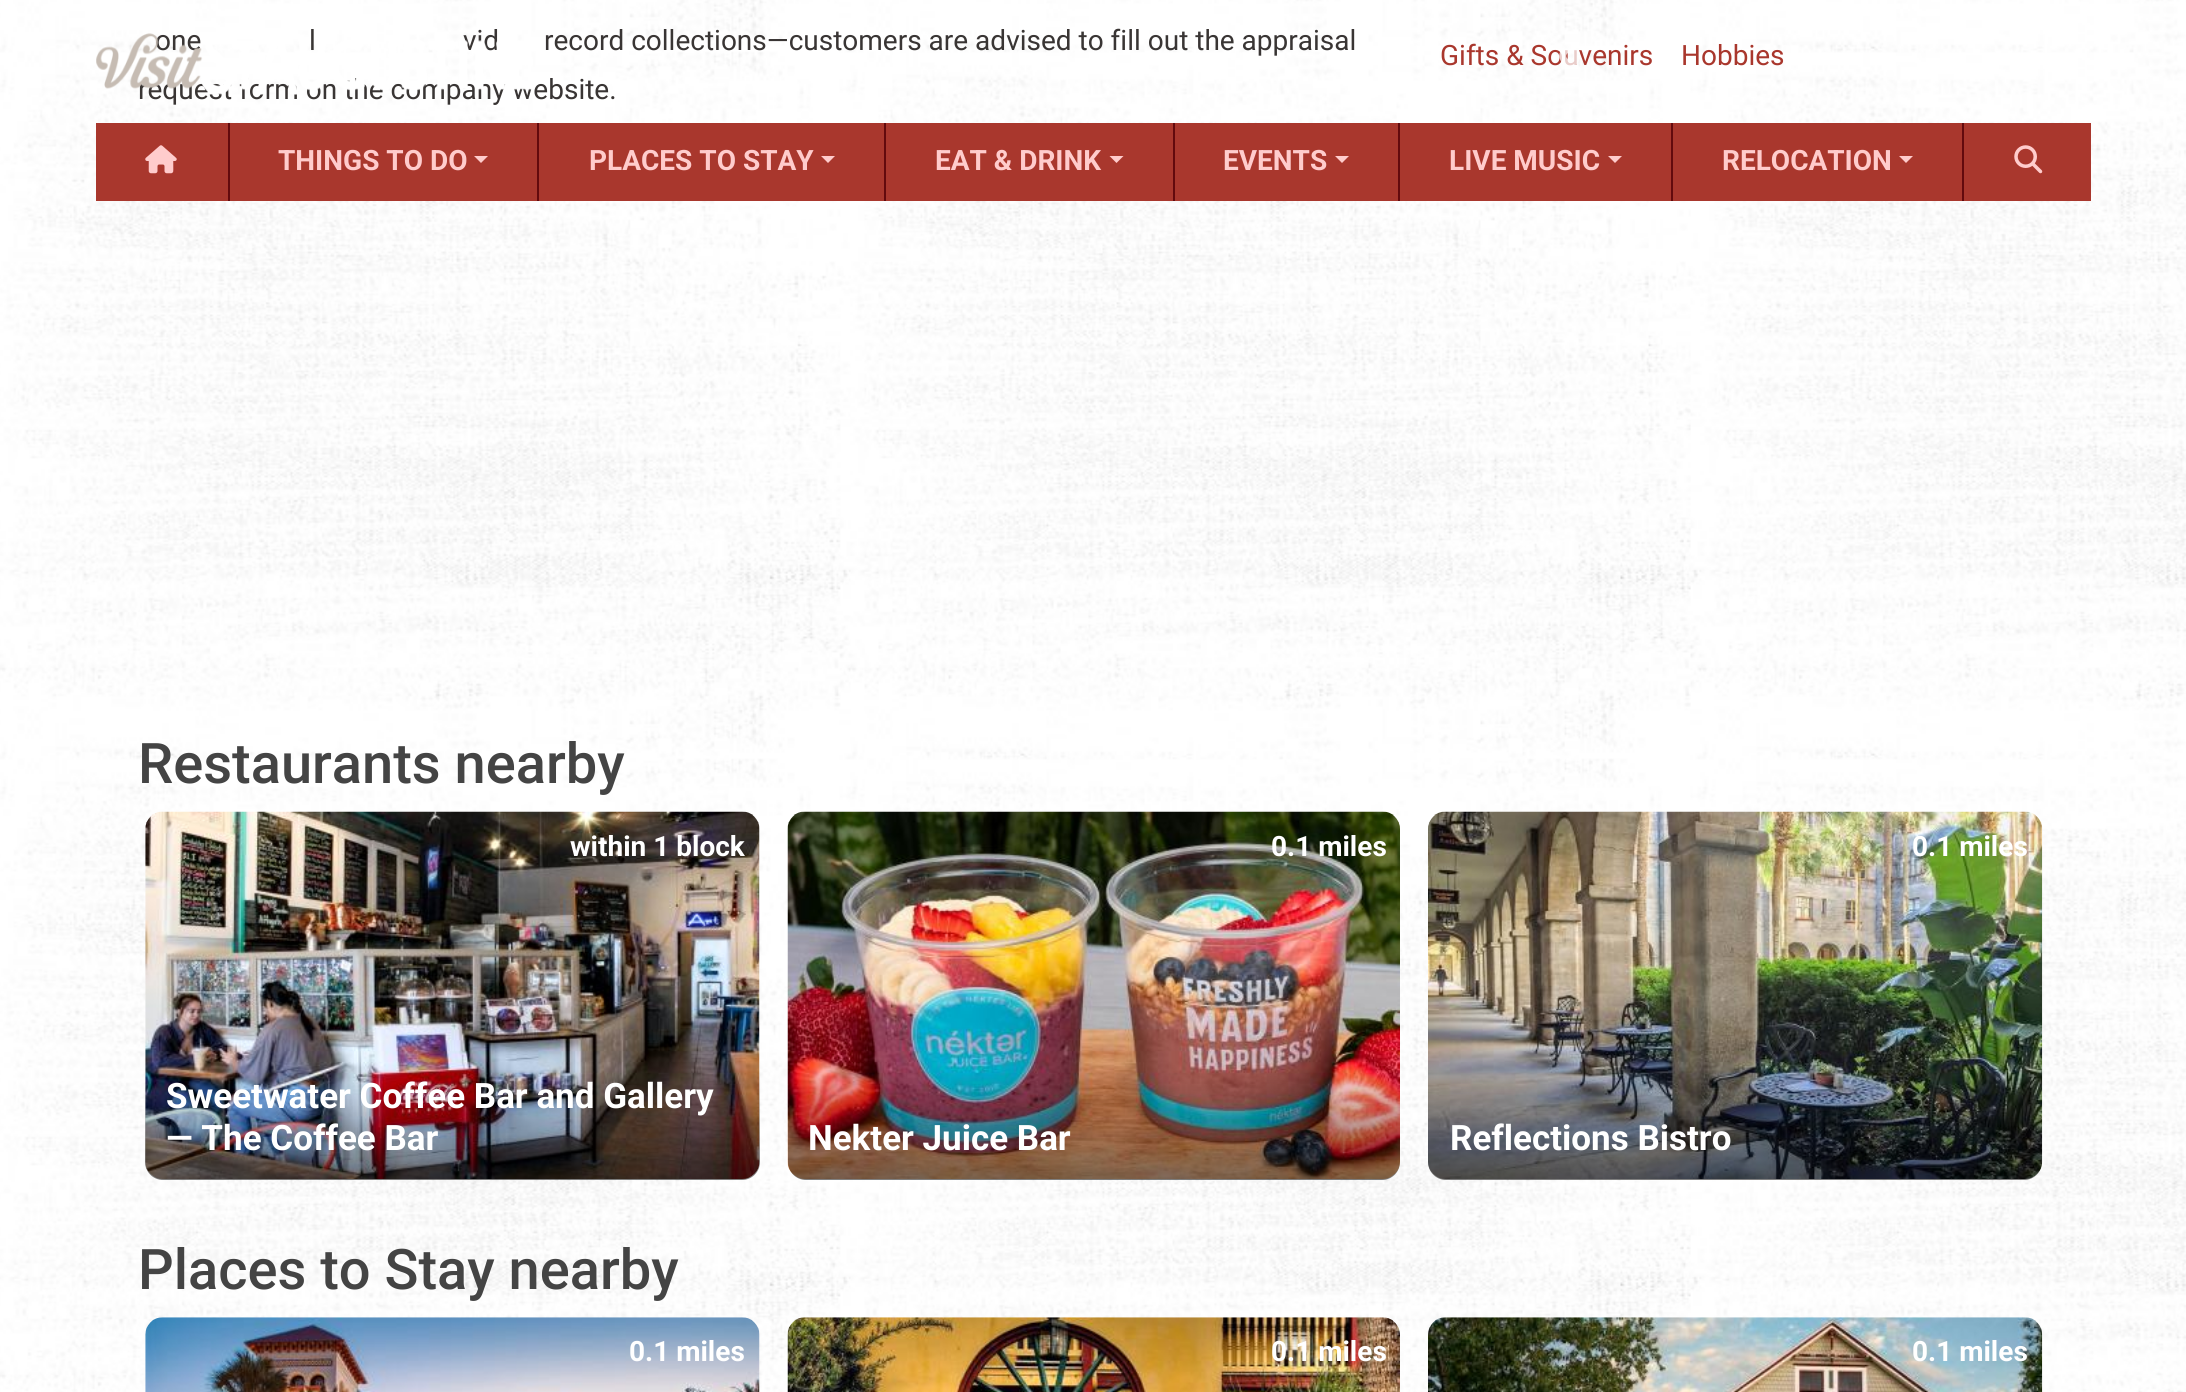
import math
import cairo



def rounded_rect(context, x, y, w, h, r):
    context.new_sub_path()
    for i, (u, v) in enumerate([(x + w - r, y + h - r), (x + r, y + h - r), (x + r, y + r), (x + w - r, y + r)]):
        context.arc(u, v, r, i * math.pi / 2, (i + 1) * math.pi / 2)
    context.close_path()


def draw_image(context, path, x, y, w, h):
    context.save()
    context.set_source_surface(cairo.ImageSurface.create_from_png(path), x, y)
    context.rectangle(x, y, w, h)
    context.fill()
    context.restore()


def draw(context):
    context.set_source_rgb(1, 1, 1)
    context.paint()
    draw_image(context, "images/1.png", 0, 0, 2186, 1392)
    draw_image(context, "images/2.png", 145, 811, 615, 368)
    gradient = cairo.LinearGradient(452, 1180, 452, 812)
    gradient.add_color_stop_rgba(0, 0, 0, 0, 0.5)
    gradient.add_color_stop_rgba(0.3, 0, 0, 0, 0)
    context.set_source(gradient)
    rounded_rect(context, 145, 812, 615, 368, 18)
    context.fill()
    draw_image(context, "images/3.png", 787, 811, 613, 368)
    gradient = cairo.LinearGradient(1094, 1180, 1094, 812)
    gradient.add_color_stop_rgba(0, 0, 0, 0, 0.5)
    gradient.add_color_stop_rgba(0.3, 0, 0, 0, 0)
    context.set_source(gradient)
    rounded_rect(context, 788, 812, 612, 368, 18)
    context.fill()
    draw_image(context, "images/4.png", 1428, 811, 615, 368)
    gradient = cairo.LinearGradient(1735, 1180, 1735, 812)
    gradient.add_color_stop_rgba(0, 0, 0, 0, 0.5)
    gradient.add_color_stop_rgba(0.3, 0, 0, 0, 0)
    context.set_source(gradient)
    rounded_rect(context, 1428, 812, 614, 368, 18)
    context.fill()
    draw_image(context, "images/5.png", 145, 1317, 615, 75)
    draw_image(context, "images/6.png", 787, 1317, 613, 75)
    draw_image(context, "images/7.png", 1428, 1317, 615, 75)
    context.set_source_rgb(169 / 255, 55 / 255, 45 / 255)
    context.rectangle(96, 123, 1995, 78)
    context.fill()
    context.set_source_rgb(99 / 255, 10 / 255, 13 / 255)
    context.rectangle(228, 123, 2, 78)
    context.fill()
    draw_image(context, "images/10.png", 145, 145, 32, 29)
    context.rectangle(537, 123, 2, 78)
    context.fill()
    context.set_source_rgb(1, 204 / 255, 204 / 255)
    context.new_path()
    context.move_to(474, 156)
    context.line_to(488, 156)
    context.line_to(481, 163)
    context.close_path()
    context.fill()
    context.set_source_rgb(99 / 255, 10 / 255, 13 / 255)
    context.rectangle(884, 123, 2, 78)
    context.fill()
    context.set_source_rgb(1, 204 / 255, 204 / 255)
    context.new_path()
    context.move_to(821, 156)
    context.line_to(835, 156)
    context.line_to(828, 163)
    context.close_path()
    context.fill()
    context.set_source_rgb(99 / 255, 10 / 255, 13 / 255)
    context.rectangle(1173, 123, 2, 78)
    context.fill()
    context.set_source_rgb(1, 204 / 255, 204 / 255)
    context.new_path()
    context.move_to(1109.5, 156)
    context.line_to(1123.5, 156)
    context.line_to(1116.5, 163)
    context.close_path()
    context.fill()
    context.set_source_rgb(99 / 255, 10 / 255, 13 / 255)
    context.rectangle(1398, 123, 2, 78)
    context.fill()
    context.set_source_rgb(1, 204 / 255, 204 / 255)
    context.new_path()
    context.move_to(1335, 156)
    context.line_to(1349, 156)
    context.line_to(1342, 163)
    context.close_path()
    context.fill()
    context.set_source_rgb(99 / 255, 10 / 255, 13 / 255)
    context.rectangle(1671, 123, 2, 78)
    context.fill()
    context.set_source_rgb(1, 204 / 255, 204 / 255)
    context.new_path()
    context.move_to(1608, 156)
    context.line_to(1622, 156)
    context.line_to(1615, 163)
    context.close_path()
    context.fill()
    context.set_source_rgb(99 / 255, 10 / 255, 13 / 255)
    context.rectangle(1962, 123, 2, 78)
    context.fill()
    context.set_source_rgb(1, 204 / 255, 204 / 255)
    context.new_path()
    context.move_to(1899, 156)
    context.line_to(1913, 156)
    context.line_to(1906, 163)
    context.close_path()
    context.fill()
    draw_image(context, "images/11.png", 2014, 145, 29, 29)
    context.select_font_face("Roboto")
    context.set_font_size(28)
    context.set_source_rgb(57 / 255, 53 / 255, 52 / 255)
    context.move_to(155, 50)
    context.show_text("one")
    context.move_to(309, 50)
    context.show_text("l")
    context.move_to(463, 50)
    context.show_text("vid")
    context.move_to(544, 50)
    context.show_text("record collections—customers are advised to fill out the appraisal")
    context.move_to(138, 99)
    context.show_text("request form on the company website.")
    context.set_source_rgb(169 / 255, 55 / 255, 45 / 255)
    context.move_to(1440, 65)
    context.show_text("Gifts & Souvenirs")
    context.move_to(1681, 65)
    context.show_text("Hobbies")
    context.select_font_face("Roboto Medium")
    context.set_font_size(56)
    context.set_source_rgb(68 / 255, 68 / 255, 68 / 255)
    context.move_to(138, 783)
    context.show_text("Restaurants nearby")
    context.select_font_face("Roboto", cairo.FontSlant.NORMAL, cairo.FontWeight.BOLD)
    context.set_font_size(28)
    context.set_source_rgb(1, 1, 1)
    context.move_to(570, 856)
    context.show_text("within 1 block")
    context.set_font_size(35)
    context.move_to(166, 1108)
    context.show_text("Sweetwater Coffee Bar and Gallery")
    context.move_to(166, 1150)
    context.show_text("— The Coffee Bar")
    context.set_font_size(28)
    context.move_to(1271, 856)
    context.show_text("0.1 miles")
    context.set_font_size(35)
    context.move_to(808, 1150)
    context.show_text("Nekter Juice Bar")
    context.set_font_size(28)
    context.move_to(1912, 856)
    context.show_text("0.1 miles")
    context.set_font_size(35)
    context.move_to(1450, 1150)
    context.show_text("Reflections Bistro")
    context.select_font_face("Roboto Medium")
    context.set_font_size(56)
    context.set_source_rgb(68 / 255, 68 / 255, 68 / 255)
    context.move_to(138, 1289)
    context.show_text("Places to Stay nearby")
    context.select_font_face("Roboto", cairo.FontSlant.NORMAL, cairo.FontWeight.BOLD)
    context.set_font_size(28)
    context.set_source_rgb(1, 1, 1)
    context.move_to(629, 1361)
    context.show_text("0.1 miles")
    context.move_to(1271, 1361)
    context.show_text("0.1 miles")
    context.move_to(1912, 1361)
    context.show_text("0.1 miles")
    draw_image(context, "images/8.png", 96, 33, 438, 62)
    draw_image(context, "images/9.png", 1559, 50, 21, 16)
    context.set_source_rgb(1, 204 / 255, 204 / 255)
    context.move_to(278, 170)
    context.show_text("THINGS TO DO")
    context.move_to(589, 170)
    context.show_text("PLACES TO STAY")
    context.move_to(935, 170)
    context.show_text("EAT & DRINK")
    context.move_to(1223, 170)
    context.show_text("EVENTS")
    context.move_to(1449, 170)
    context.show_text("LIVE MUSIC")
    context.move_to(1722, 170)
    context.show_text("RELOCATION")


surface = cairo.ImageSurface(cairo.Format.RGB24, 2186, 1392)
context = cairo.Context(surface)
options = cairo.FontOptions()
options.set_hint_metrics(cairo.HintMetrics.OFF)
options.set_hint_style(cairo.HintStyle.NONE)
context.set_font_options(options)
context.set_miter_limit(4)
draw(context)
surface.write_to_png("out.png")
